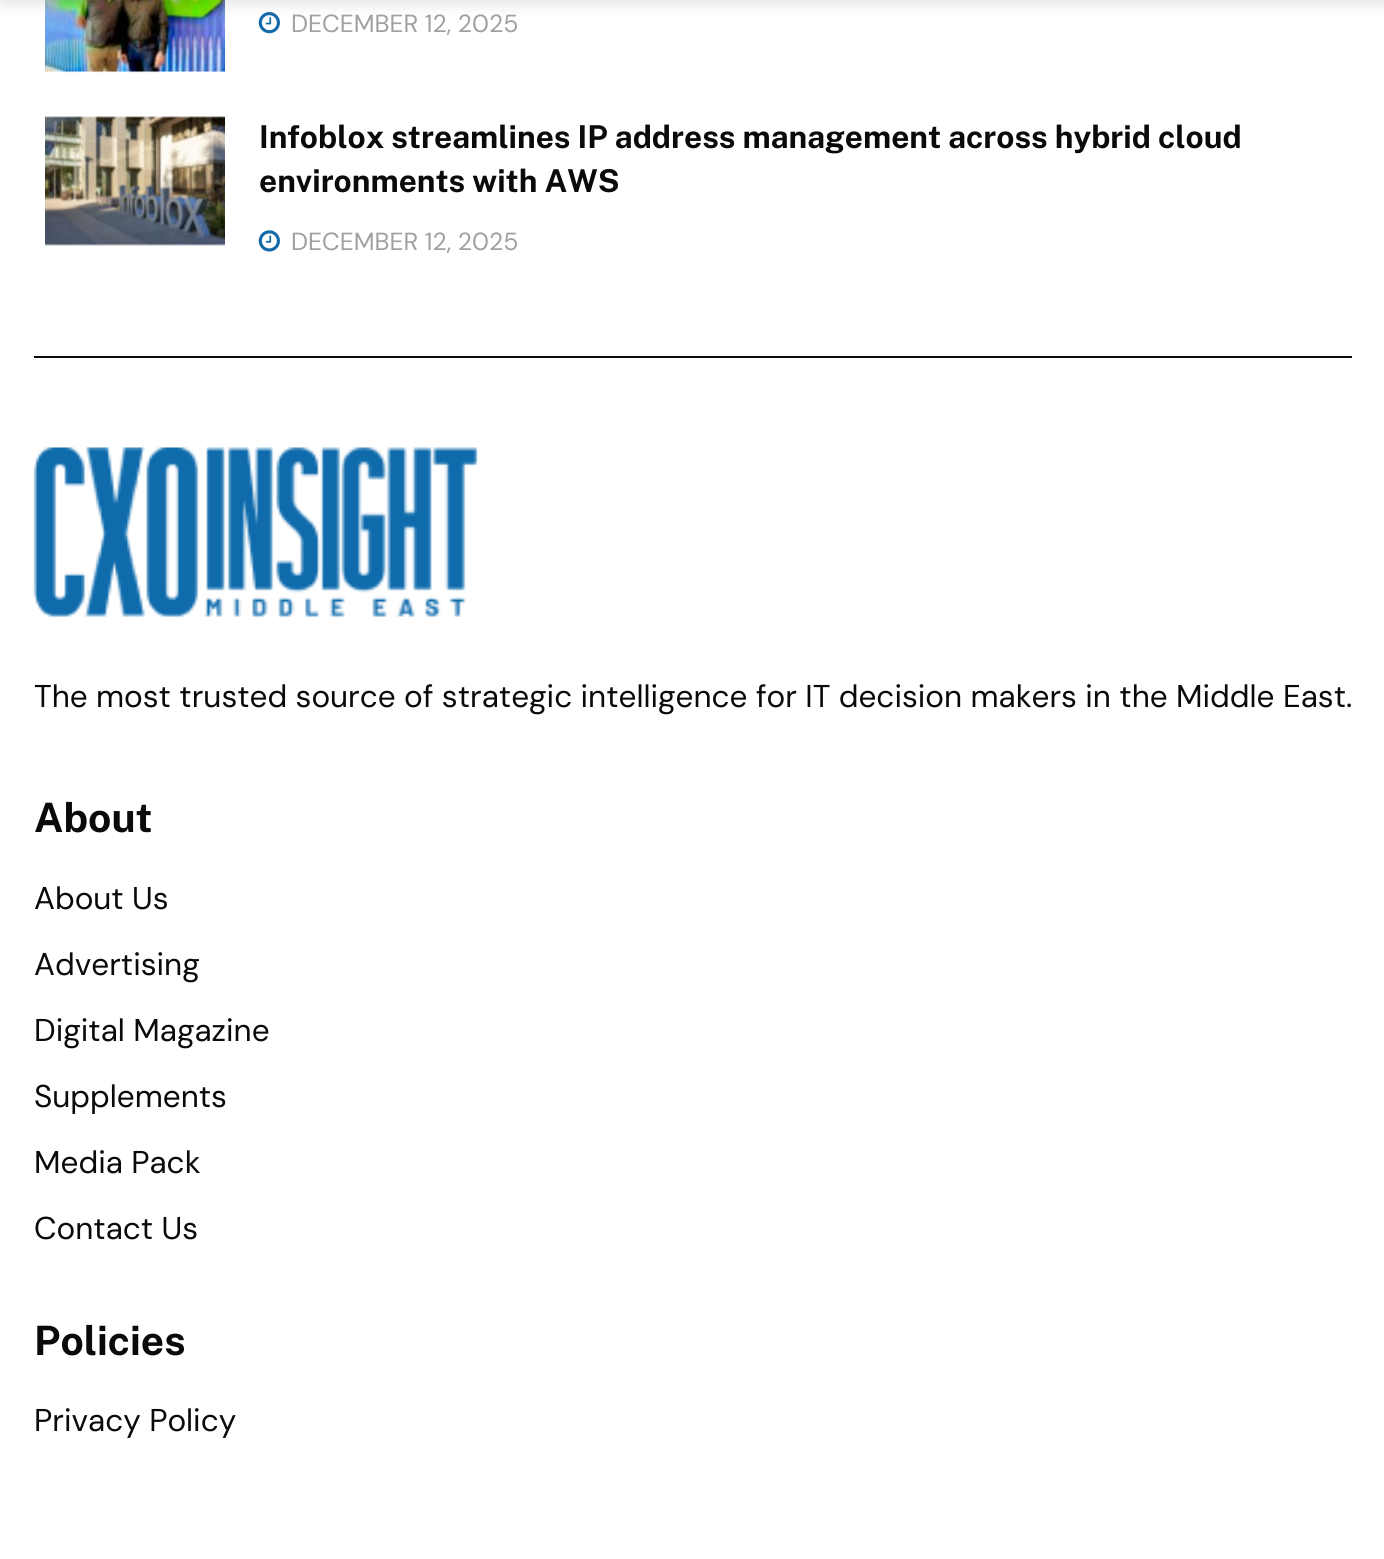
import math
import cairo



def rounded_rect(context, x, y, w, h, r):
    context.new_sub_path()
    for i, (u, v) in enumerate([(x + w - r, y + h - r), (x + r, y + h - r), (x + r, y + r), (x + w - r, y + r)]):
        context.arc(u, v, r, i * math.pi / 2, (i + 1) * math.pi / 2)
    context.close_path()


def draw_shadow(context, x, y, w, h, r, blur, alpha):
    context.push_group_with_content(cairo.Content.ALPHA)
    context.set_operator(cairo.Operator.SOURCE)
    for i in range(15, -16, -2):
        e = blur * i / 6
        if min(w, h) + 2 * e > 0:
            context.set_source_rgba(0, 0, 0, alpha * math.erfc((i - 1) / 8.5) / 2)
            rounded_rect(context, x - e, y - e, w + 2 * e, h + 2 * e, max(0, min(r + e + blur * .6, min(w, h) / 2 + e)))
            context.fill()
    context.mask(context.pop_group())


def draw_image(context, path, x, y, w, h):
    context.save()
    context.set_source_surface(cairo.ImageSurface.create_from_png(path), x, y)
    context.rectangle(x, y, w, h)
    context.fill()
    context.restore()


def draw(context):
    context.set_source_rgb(1, 1, 1)
    context.paint()
    context.set_source_rgb(247 / 255, 247 / 255, 247 / 255)
    context.rectangle(45, 71, 180, 1)
    context.fill()
    draw_image(context, "images/1.png", 45, 0, 180, 73)
    draw_image(context, "images/2.png", 258, 12, 22, 22)
    context.set_source_rgb(0, 0, 0)
    draw_shadow(context, 0, -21, 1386, 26, 0, 7, 0.1)
    context.set_source_rgb(247 / 255, 247 / 255, 247 / 255)
    context.rectangle(45, 117, 180, 128)
    context.fill()
    draw_image(context, "images/3.png", 45, 116, 180, 130)
    draw_image(context, "images/4.png", 258, 230, 22, 22)
    context.set_source_rgb(10 / 255, 10 / 255, 10 / 255)
    context.rectangle(34, 356, 1318, 2)
    context.fill()
    draw_image(context, "images/5.png", 33, 447, 445, 170)
    context.select_font_face("DM Sans")
    context.set_font_size(24.75)
    context.set_source_rgb(160 / 255, 160 / 255, 160 / 255)
    context.move_to(291, 32)
    context.show_text("DECEMBER 12, 2025")
    context.select_font_face("Public Sans", cairo.FontSlant.NORMAL, cairo.FontWeight.BOLD)
    context.set_font_size(31.5)
    context.set_source_rgb(10 / 255, 10 / 255, 10 / 255)
    context.move_to(259, 148)
    context.show_text("Infoblox streamlines IP address management across hybrid cloud")
    context.move_to(259, 192)
    context.show_text("environments with AWS")
    context.select_font_face("DM Sans")
    context.set_font_size(24.75)
    context.set_source_rgb(160 / 255, 160 / 255, 160 / 255)
    context.move_to(291, 250)
    context.show_text("DECEMBER 12, 2025")
    context.set_font_size(31.5)
    context.set_source_rgb(10 / 255, 10 / 255, 10 / 255)
    context.move_to(34, 707)
    context.show_text("The most trusted source of strategic intelligence for IT decision makers in the Middle East.")
    context.select_font_face("Public Sans", cairo.FontSlant.NORMAL, cairo.FontWeight.BOLD)
    context.set_font_size(40.5)
    context.move_to(34, 832)
    context.show_text("About")
    context.select_font_face("DM Sans")
    context.set_font_size(31.5)
    context.move_to(34, 909)
    context.show_text("About Us")
    context.move_to(34, 975)
    context.show_text("Advertising")
    context.move_to(34, 1041)
    context.show_text("Digital Magazine")
    context.move_to(34, 1107)
    context.show_text("Supplements")
    context.move_to(34, 1173)
    context.show_text("Media Pack")
    context.move_to(34, 1239)
    context.show_text("Contact Us")
    context.select_font_face("Public Sans", cairo.FontSlant.NORMAL, cairo.FontWeight.BOLD)
    context.set_font_size(40.5)
    context.move_to(34, 1355)
    context.show_text("Policies")
    context.select_font_face("DM Sans")
    context.set_font_size(31.5)
    context.move_to(34, 1431)
    context.show_text("Privacy Policy")


surface = cairo.ImageSurface(cairo.Format.RGB24, 1384, 1559)
context = cairo.Context(surface)
options = cairo.FontOptions()
options.set_hint_metrics(cairo.HintMetrics.OFF)
options.set_hint_style(cairo.HintStyle.NONE)
context.set_font_options(options)
context.set_miter_limit(4)
draw(context)
surface.write_to_png("out.png")
